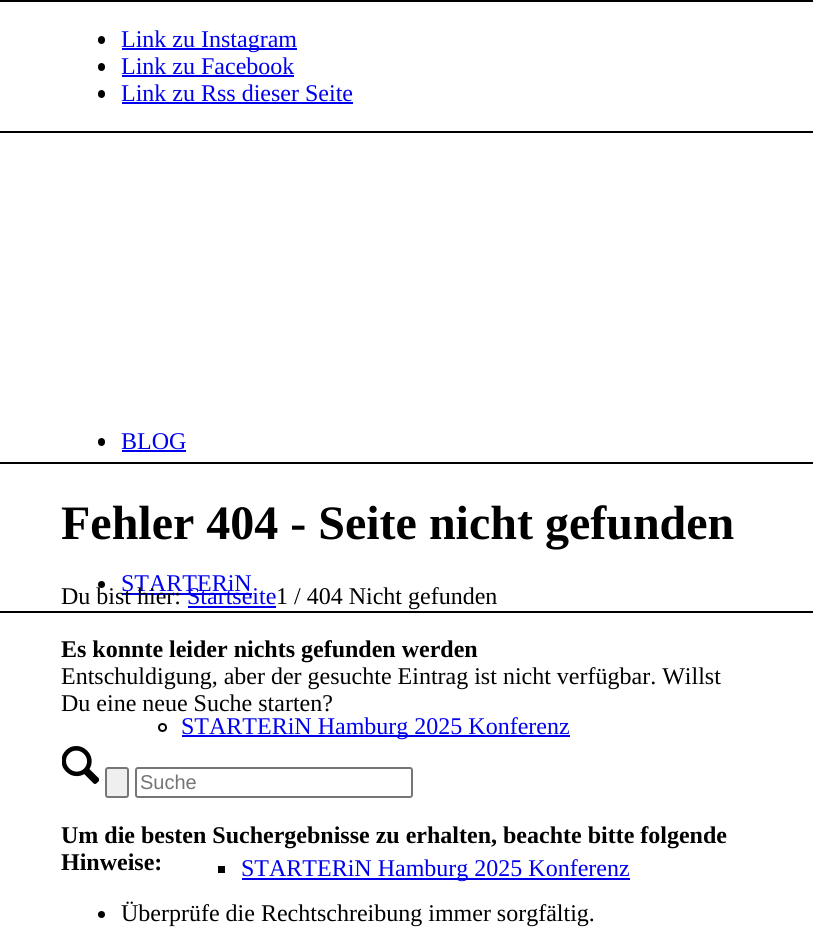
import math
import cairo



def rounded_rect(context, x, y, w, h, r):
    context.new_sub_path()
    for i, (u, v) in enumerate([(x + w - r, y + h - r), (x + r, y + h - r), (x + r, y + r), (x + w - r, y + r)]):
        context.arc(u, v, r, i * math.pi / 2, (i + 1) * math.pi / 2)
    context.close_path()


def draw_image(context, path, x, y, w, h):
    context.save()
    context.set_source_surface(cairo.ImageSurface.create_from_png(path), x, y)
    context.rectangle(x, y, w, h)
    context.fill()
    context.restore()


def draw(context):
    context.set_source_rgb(1, 1, 1)
    context.paint()
    context.set_source_rgb(0, 0, 0)
    context.rectangle(0, 0, 813, 2)
    context.fill()
    rounded_rect(context, 98, 36, 7, 8, 3.5)
    context.fill()
    context.set_source_rgb(0, 0, 238 / 255)
    context.rectangle(122, 48, 175, 2)
    context.fill()
    context.set_source_rgb(0, 0, 0)
    rounded_rect(context, 98, 63, 7, 8, 3.5)
    context.fill()
    context.set_source_rgb(0, 0, 238 / 255)
    context.rectangle(122, 75, 172, 2)
    context.fill()
    context.set_source_rgb(0, 0, 0)
    rounded_rect(context, 98, 90, 7, 8, 3.5)
    context.fill()
    context.set_source_rgb(0, 0, 238 / 255)
    context.rectangle(122, 102, 231, 2)
    context.fill()
    context.set_source_rgb(0, 0, 0)
    context.rectangle(0, 131, 813, 2)
    context.fill()
    rounded_rect(context, 98, 438, 7, 8, 3.5)
    context.fill()
    context.set_source_rgb(0, 0, 238 / 255)
    context.rectangle(122, 450, 64, 2)
    context.fill()
    context.set_source_rgb(0, 0, 0)
    context.arc(101.5, 584.5, 3.5, 0, 2 * math.pi)
    context.fill()
    context.set_source_rgb(0, 0, 238 / 255)
    context.rectangle(122, 593, 130, 2)
    context.fill()
    context.arc(162.5, 727.5, 3.5, 0, 2 * math.pi)
    context.set_source_rgb(0, 0, 0)
    context.stroke()
    context.set_source_rgb(0, 0, 238 / 255)
    context.rectangle(182, 735, 388, 2)
    context.fill()
    context.set_source_rgb(0, 0, 0)
    context.rectangle(218, 866, 7, 7)
    context.fill()
    context.set_source_rgb(0, 0, 238 / 255)
    context.rectangle(242, 878, 388, 2)
    context.fill()
    context.set_source_rgb(0, 0, 0)
    context.rectangle(0, 462, 813, 2)
    context.fill()
    context.set_source_rgb(0, 0, 238 / 255)
    context.rectangle(188, 606, 88, 2)
    context.fill()
    context.set_source_rgb(0, 0, 0)
    context.rectangle(0, 611, 813, 2)
    context.fill()
    draw_image(context, "images/1.png", 62, 746, 37, 38)
    context.set_source_rgb(239 / 255, 239 / 255, 239 / 255)
    rounded_rect(context, 106, 768, 22, 29, 2)
    context.fill_preserve()
    context.set_source_rgb(118 / 255, 118 / 255, 118 / 255)
    context.stroke()
    rounded_rect(context, 136, 768, 276, 29, 2)
    context.stroke()
    context.set_source_rgb(0, 0, 0)
    context.arc(101.5, 914.5, 3.5, 0, 2 * math.pi)
    context.fill()
    context.select_font_face("Liberation Serif")
    context.set_font_size(24)
    context.set_source_rgb(0, 0, 238 / 255)
    context.move_to(121, 47)
    context.show_text("Link zu Instagram")
    context.move_to(121, 74)
    context.show_text("Link zu Facebook")
    context.move_to(121, 101)
    context.show_text("Link zu Rss dieser Seite")
    context.move_to(121, 449)
    context.show_text("BLOG")
    context.move_to(121, 591)
    context.show_text("STARTERiN")
    context.move_to(181, 734)
    context.show_text("STARTERiN Hamburg 2025 Konferenz")
    context.move_to(241, 876)
    context.show_text("STARTERiN Hamburg 2025 Konferenz")
    context.select_font_face("Liberation Serif", cairo.FontSlant.NORMAL, cairo.FontWeight.BOLD)
    context.set_font_size(48)
    context.set_source_rgb(0, 0, 0)
    context.move_to(61, 539)
    context.show_text("Fehler 404 - Seite nicht gefunden")
    context.select_font_face("Liberation Serif")
    context.set_font_size(24)
    context.move_to(61, 604)
    context.show_text("Du bist hier:")
    context.set_source_rgb(0, 0, 238 / 255)
    context.move_to(187, 604)
    context.show_text("Startseite")
    context.set_source_rgb(0, 0, 0)
    context.move_to(276, 604)
    context.show_text("1 / 404 Nicht gefunden")
    context.select_font_face("Liberation Serif", cairo.FontSlant.NORMAL, cairo.FontWeight.BOLD)
    context.move_to(61, 657)
    context.show_text("Es konnte leider nichts gefunden werden")
    context.select_font_face("Liberation Serif")
    context.move_to(61, 684)
    context.show_text("Entschuldigung, aber der gesuchte Eintrag ist nicht verfügbar. Willst")
    context.move_to(61, 711)
    context.show_text("Du eine neue Suche starten?")
    context.select_font_face("Liberation Sans")
    context.set_font_size(20)
    context.set_source_rgb(117 / 255, 117 / 255, 117 / 255)
    context.move_to(140, 789)
    context.show_text("Suche")
    context.select_font_face("Liberation Serif", cairo.FontSlant.NORMAL, cairo.FontWeight.BOLD)
    context.set_font_size(24)
    context.set_source_rgb(0, 0, 0)
    context.move_to(61, 843)
    context.show_text("Um die besten Suchergebnisse zu erhalten, beachte bitte folgende")
    context.move_to(61, 870)
    context.show_text("Hinweise:")
    context.select_font_face("Liberation Serif")
    context.move_to(121, 921)
    context.show_text("Überprüfe die Rechtschreibung immer sorgfältig.")


surface = cairo.ImageSurface(cairo.Format.RGB24, 813, 937)
context = cairo.Context(surface)
options = cairo.FontOptions()
options.set_hint_metrics(cairo.HintMetrics.OFF)
options.set_hint_style(cairo.HintStyle.NONE)
context.set_font_options(options)
context.set_miter_limit(4)
draw(context)
surface.write_to_png("out.png")
